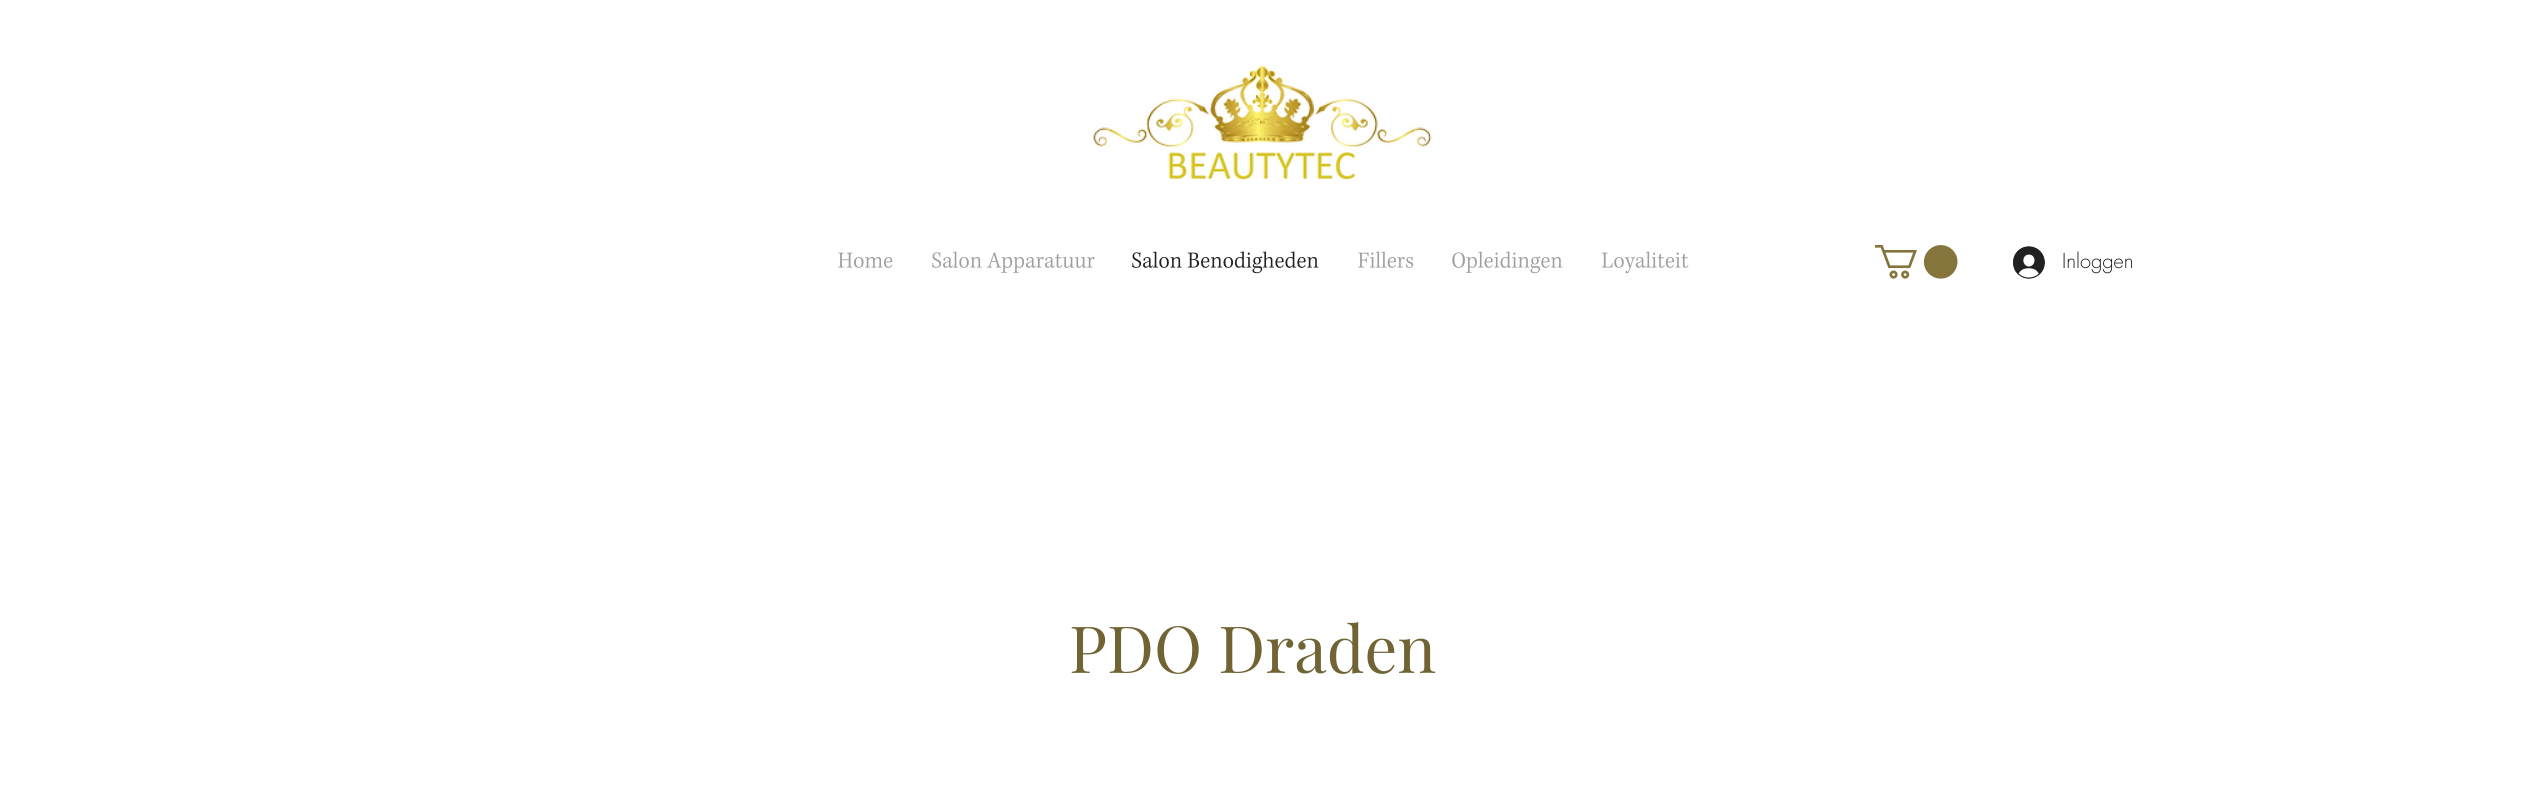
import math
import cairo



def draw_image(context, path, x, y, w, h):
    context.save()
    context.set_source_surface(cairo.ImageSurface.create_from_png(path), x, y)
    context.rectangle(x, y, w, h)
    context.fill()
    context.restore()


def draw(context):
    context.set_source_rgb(1, 1, 1)
    context.paint()
    draw_image(context, "images/1.png", 1093, 65, 339, 116)
    draw_image(context, "images/2.png", 838, 252, 55, 16)
    draw_image(context, "images/3.png", 932, 251, 163, 22)
    draw_image(context, "images/4.png", 1132, 251, 187, 23)
    draw_image(context, "images/5.png", 1358, 251, 56, 17)
    draw_image(context, "images/6.png", 1452, 251, 111, 23)
    draw_image(context, "images/7.png", 1601, 251, 88, 23)
    draw_image(context, "images/8.png", 1875, 245, 83, 34)
    draw_image(context, "images/9.png", 2013, 246, 32, 33)
    context.select_font_face("futura Light")
    context.set_font_size(20)
    context.set_source_rgb(33 / 255, 33 / 255, 33 / 255)
    context.move_to(2062, 268)
    context.show_text("Inloggen")
    context.select_font_face("Playfair Display")
    context.set_font_size(65)
    context.set_source_rgb(112 / 255, 99 / 255, 52 / 255)
    context.move_to(1069, 673)
    context.show_text("PDO Draden")


surface = cairo.ImageSurface(cairo.Format.RGB24, 2526, 795)
context = cairo.Context(surface)
options = cairo.FontOptions()
options.set_hint_metrics(cairo.HintMetrics.OFF)
options.set_hint_style(cairo.HintStyle.NONE)
context.set_font_options(options)
context.set_miter_limit(4)
draw(context)
surface.write_to_png("out.png")
